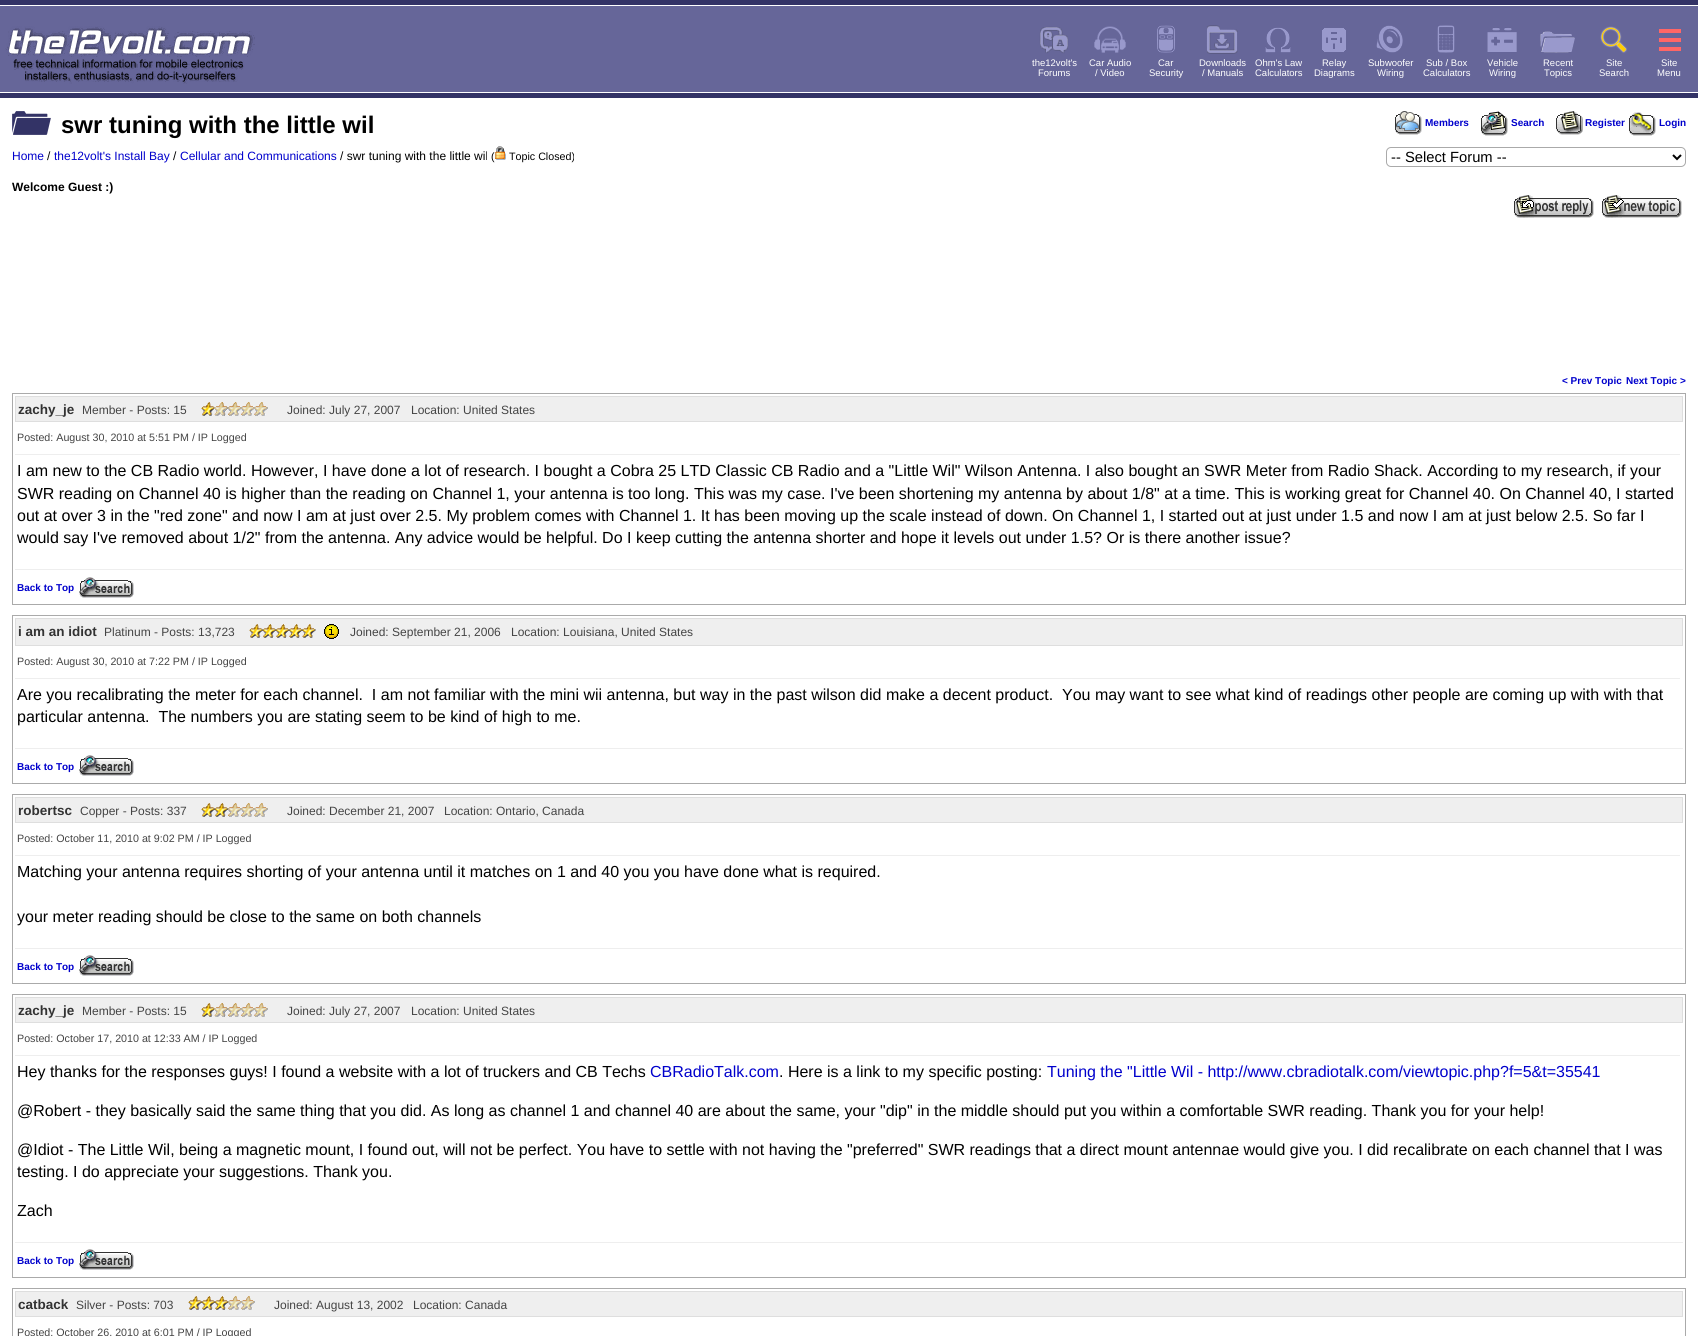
import math
import cairo



def rounded_rect(context, x, y, w, h, r):
    context.new_sub_path()
    for i, (u, v) in enumerate([(x + w - r, y + h - r), (x + r, y + h - r), (x + r, y + r), (x + w - r, y + r)]):
        context.arc(u, v, r, i * math.pi / 2, (i + 1) * math.pi / 2)
    context.close_path()


def draw_image(context, path, x, y, w, h):
    context.save()
    context.set_source_surface(cairo.ImageSurface.create_from_png(path), x, y)
    context.rectangle(x, y, w, h)
    context.fill()
    context.restore()


def draw(context):
    context.set_source_rgb(1, 1, 1)
    context.paint()
    context.set_source_rgb(51 / 255, 51 / 255, 102 / 255)
    context.rectangle(0, 0, 1698, 5)
    context.fill()
    context.set_source_rgb(102 / 255, 102 / 255, 153 / 255)
    context.rectangle(0, 6, 1698, 86)
    context.fill()
    draw_image(context, "images/1.png", 5, 26, 250, 58)
    context.set_source_rgb(153 / 255, 153 / 255, 204 / 255)
    context.rectangle(1040, 27, 28, 26)
    context.fill()
    draw_image(context, "images/2.png", 1036, 22, 36, 36)
    context.rectangle(1094, 26, 32, 27)
    context.fill()
    draw_image(context, "images/3.png", 1092, 22, 36, 35)
    context.rectangle(1157, 25, 18, 28)
    context.fill()
    draw_image(context, "images/4.png", 1148, 22, 36, 35)
    context.rectangle(1206, 26, 32, 27)
    context.fill()
    draw_image(context, "images/5.png", 1204, 22, 36, 35)
    context.rectangle(1265, 27, 26, 26)
    context.fill()
    draw_image(context, "images/6.png", 1260, 22, 36, 36)
    context.rectangle(1322, 28, 24, 24)
    context.fill()
    draw_image(context, "images/7.png", 1316, 22, 36, 36)
    context.rectangle(1376, 25, 27, 28)
    context.fill()
    draw_image(context, "images/8.png", 1372, 22, 36, 35)
    context.rectangle(1437, 25, 18, 28)
    context.fill()
    draw_image(context, "images/9.png", 1428, 22, 36, 35)
    context.rectangle(1487, 27, 30, 26)
    context.fill()
    draw_image(context, "images/10.png", 1484, 22, 36, 35)
    context.rectangle(1540, 31, 35, 22)
    context.fill()
    draw_image(context, "images/11.png", 1540, 24, 36, 34)
    context.set_source_rgb(1, 204 / 255, 0)
    context.rectangle(1601, 27, 26, 26)
    context.fill()
    draw_image(context, "images/12.png", 1596, 22, 36, 36)
    context.set_source_rgb(1, 102 / 255, 102 / 255)
    context.rectangle(1659, 29, 22, 22)
    context.fill()
    draw_image(context, "images/13.png", 1652, 22, 36, 36)
    context.set_source_rgb(51 / 255, 51 / 255, 102 / 255)
    context.rectangle(0, 93, 1698, 5)
    context.fill()
    draw_image(context, "images/14.png", 12, 111, 39, 24)
    draw_image(context, "images/15.png", 495, 146, 11, 14)
    draw_image(context, "images/16.png", 1395, 111, 27, 24)
    draw_image(context, "images/17.png", 1481, 111, 27, 25)
    draw_image(context, "images/18.png", 1556, 111, 27, 24)
    draw_image(context, "images/19.png", 1629, 112, 27, 24)
    rounded_rect(context, 1386.5, 147.5, 299, 19, 4.5)
    context.set_source_rgb(170 / 255, 170 / 255, 170 / 255)
    context.set_line_width(1)
    context.stroke()
    context.new_path()
    context.move_to(1673, 155)
    context.line_to(1677, 159)
    context.line_to(1681, 155)
    context.set_source_rgb(0, 0, 0)
    context.set_line_width(2)
    context.stroke()
    draw_image(context, "images/20.png", 1514, 195, 80, 23)
    draw_image(context, "images/21.png", 1602, 195, 80, 23)
    context.rectangle(12.5, 393.5, 1673, 211)
    context.set_source_rgb(170 / 255, 170 / 255, 170 / 255)
    context.set_line_width(1)
    context.stroke()
    context.set_source_rgb(239 / 255, 239 / 255, 239 / 255)
    context.rectangle(15.5, 396.5, 1667, 25)
    context.fill_preserve()
    context.set_source_rgb(222 / 255, 222 / 255, 222 / 255)
    context.stroke()
    draw_image(context, "images/22.png", 201, 402, 67, 14)
    context.set_source_rgb(238 / 255, 238 / 255, 238 / 255)
    context.rectangle(15, 454, 1665, 1)
    context.fill()
    context.rectangle(15, 569, 1668, 1)
    context.fill()
    draw_image(context, "images/23.png", 79, 577, 55, 21)
    context.rectangle(12.5, 615.5, 1673, 168)
    context.set_source_rgb(170 / 255, 170 / 255, 170 / 255)
    context.stroke()
    context.set_source_rgb(239 / 255, 239 / 255, 239 / 255)
    context.rectangle(15.5, 618.5, 1667, 27)
    context.fill_preserve()
    context.set_source_rgb(222 / 255, 222 / 255, 222 / 255)
    context.stroke()
    draw_image(context, "images/24.png", 249, 624, 67, 14)
    draw_image(context, "images/25.png", 324, 624, 15, 15)
    context.set_source_rgb(238 / 255, 238 / 255, 238 / 255)
    context.rectangle(15, 678, 1665, 1)
    context.fill()
    context.rectangle(15, 748, 1668, 1)
    context.fill()
    draw_image(context, "images/23.png", 79, 755, 55, 21)
    context.rectangle(12.5, 794.5, 1673, 189)
    context.set_source_rgb(170 / 255, 170 / 255, 170 / 255)
    context.stroke()
    context.set_source_rgb(239 / 255, 239 / 255, 239 / 255)
    context.rectangle(15.5, 797.5, 1667, 25)
    context.fill_preserve()
    context.set_source_rgb(222 / 255, 222 / 255, 222 / 255)
    context.stroke()
    draw_image(context, "images/26.png", 201, 803, 67, 14)
    context.set_source_rgb(238 / 255, 238 / 255, 238 / 255)
    context.rectangle(15, 855, 1665, 1)
    context.fill()
    context.rectangle(15, 948, 1668, 1)
    context.fill()
    draw_image(context, "images/23.png", 79, 955, 55, 21)
    context.rectangle(12.5, 994.5, 1673, 283)
    context.set_source_rgb(170 / 255, 170 / 255, 170 / 255)
    context.stroke()
    context.set_source_rgb(239 / 255, 239 / 255, 239 / 255)
    context.rectangle(15.5, 997.5, 1667, 25)
    context.fill_preserve()
    context.set_source_rgb(222 / 255, 222 / 255, 222 / 255)
    context.stroke()
    draw_image(context, "images/22.png", 201, 1003, 67, 14)
    context.set_source_rgb(238 / 255, 238 / 255, 238 / 255)
    context.rectangle(15, 1055, 1665, 1)
    context.fill()
    context.rectangle(15, 1242, 1668, 1)
    context.fill()
    draw_image(context, "images/23.png", 79, 1249, 55, 21)
    context.rectangle(12.5, 1288.5, 1673, 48)
    context.set_source_rgb(170 / 255, 170 / 255, 170 / 255)
    context.stroke()
    context.set_source_rgb(239 / 255, 239 / 255, 239 / 255)
    context.rectangle(15.5, 1291.5, 1667, 25)
    context.fill_preserve()
    context.set_source_rgb(222 / 255, 222 / 255, 222 / 255)
    context.stroke()
    draw_image(context, "images/27.png", 188, 1296, 67, 14)
    context.select_font_face("Liberation Sans")
    context.set_font_size(9.5)
    context.set_source_rgb(1, 1, 1)
    context.move_to(1032, 66)
    context.show_text("the12volt's")
    context.move_to(1038, 76)
    context.show_text("Forums")
    context.move_to(1089, 66)
    context.show_text("Car Audio")
    context.move_to(1095, 76)
    context.show_text("/ Video")
    context.move_to(1158, 66)
    context.show_text("Car")
    context.move_to(1149, 76)
    context.show_text("Security")
    context.move_to(1199, 66)
    context.show_text("Downloads")
    context.move_to(1202, 76)
    context.show_text("/ Manuals")
    context.move_to(1255, 66)
    context.show_text("Ohm's Law")
    context.move_to(1255, 76)
    context.show_text("Calculators")
    context.move_to(1322, 66)
    context.show_text("Relay")
    context.move_to(1314, 76)
    context.show_text("Diagrams")
    context.move_to(1368, 66)
    context.show_text("Subwoofer")
    context.move_to(1377, 76)
    context.show_text("Wiring")
    context.move_to(1426, 66)
    context.show_text("Sub / Box")
    context.move_to(1423, 76)
    context.show_text("Calculators")
    context.move_to(1487, 66)
    context.show_text("Vehicle")
    context.move_to(1489, 76)
    context.show_text("Wiring")
    context.move_to(1543, 66)
    context.show_text("Recent")
    context.move_to(1544, 76)
    context.show_text("Topics")
    context.move_to(1606, 66)
    context.show_text("Site")
    context.move_to(1599, 76)
    context.show_text("Search")
    context.move_to(1661, 66)
    context.show_text("Site")
    context.move_to(1657, 76)
    context.show_text("Menu")
    context.select_font_face("Liberation Sans", cairo.FontSlant.NORMAL, cairo.FontWeight.BOLD)
    context.set_font_size(24)
    context.set_source_rgb(0, 0, 0)
    context.move_to(61, 133)
    context.show_text("swr tuning with the little wil")
    context.select_font_face("Liberation Sans")
    context.set_font_size(12)
    context.set_source_rgb(0, 0, 204 / 255)
    context.move_to(12, 160)
    context.show_text("Home")
    context.set_source_rgb(0, 0, 0)
    context.move_to(47, 160)
    context.show_text("/")
    context.set_source_rgb(0, 0, 204 / 255)
    context.move_to(54, 160)
    context.show_text("the12volt's Install Bay")
    context.set_source_rgb(0, 0, 0)
    context.move_to(173, 160)
    context.show_text("/")
    context.set_source_rgb(0, 0, 204 / 255)
    context.move_to(180, 160)
    context.show_text("Cellular and Communications")
    context.set_source_rgb(0, 0, 0)
    context.move_to(340, 160)
    context.show_text("/ swr tuning with the little wil")
    context.set_font_size(10.7)
    context.move_to(491, 160)
    context.show_text("(")
    context.move_to(509, 160)
    context.show_text("Topic Closed)")
    context.select_font_face("Liberation Sans", cairo.FontSlant.NORMAL, cairo.FontWeight.BOLD)
    context.set_font_size(12)
    context.move_to(12, 191)
    context.show_text("Welcome Guest :)")
    context.set_font_size(10)
    context.set_source_rgb(0, 0, 204 / 255)
    context.move_to(1425, 126)
    context.show_text("Members")
    context.move_to(1511, 126)
    context.show_text("Search")
    context.move_to(1585, 126)
    context.show_text("Register")
    context.move_to(1659, 126)
    context.show_text("Login")
    context.select_font_face("Liberation Sans")
    context.set_font_size(14.75)
    context.set_source_rgb(0, 0, 0)
    context.move_to(1391, 162)
    context.show_text("-- Select Forum --")
    context.select_font_face("Liberation Sans", cairo.FontSlant.NORMAL, cairo.FontWeight.BOLD)
    context.set_font_size(10)
    context.set_source_rgb(0, 0, 204 / 255)
    context.move_to(1562, 384)
    context.show_text("< Prev Topic")
    context.move_to(1626, 384)
    context.show_text("Next Topic >")
    context.set_font_size(13.5)
    context.set_source_rgb(51 / 255, 51 / 255, 51 / 255)
    context.move_to(18, 414)
    context.show_text("zachy_je")
    context.select_font_face("Liberation Sans")
    context.set_font_size(12)
    context.set_source_rgb(68 / 255, 68 / 255, 68 / 255)
    context.move_to(82, 414)
    context.show_text("Member - Posts: 15")
    context.move_to(287, 414)
    context.show_text("Joined: July 27, 2007")
    context.move_to(411, 414)
    context.show_text("Location: United States")
    context.set_font_size(10.7)
    context.move_to(17, 441)
    context.show_text("Posted: August 30, 2010 at 5:51 PM / IP Logged")
    context.set_font_size(16)
    context.set_source_rgb(0, 0, 0)
    context.move_to(17, 476)
    context.show_text("I am new to the CB Radio world. However, I have done a lot of research. I bought a Cobra 25 LTD Classic CB Radio and a \"Little Wil\" Wilson Antenna. I also bought an SWR Meter from Radio Shack. According to my research, if your")
    context.move_to(17, 499)
    context.show_text("SWR reading on Channel 40 is higher than the reading on Channel 1, your antenna is too long. This was my case. I've been shortening my antenna by about 1/8\" at a time. This is working great for Channel 40. On Channel 40, I started")
    context.move_to(17, 521)
    context.show_text("out at over 3 in the \"red zone\" and now I am at just over 2.5. My problem comes with Channel 1. It has been moving up the scale instead of down. On Channel 1, I started out at just under 1.5 and now I am at just below 2.5. So far I")
    context.move_to(17, 543)
    context.show_text("would say I've removed about 1/2\" from the antenna. Any advice would be helpful. Do I keep cutting the antenna shorter and hope it levels out under 1.5? Or is there another issue?")
    context.select_font_face("Liberation Sans", cairo.FontSlant.NORMAL, cairo.FontWeight.BOLD)
    context.set_font_size(10)
    context.set_source_rgb(0, 0, 204 / 255)
    context.move_to(17, 591)
    context.show_text("Back to Top")
    context.set_font_size(13.5)
    context.set_source_rgb(51 / 255, 51 / 255, 51 / 255)
    context.move_to(18, 636)
    context.show_text("i am an idiot")
    context.select_font_face("Liberation Sans")
    context.set_font_size(12)
    context.set_source_rgb(68 / 255, 68 / 255, 68 / 255)
    context.move_to(104, 636)
    context.show_text("Platinum - Posts: 13,723")
    context.move_to(350, 636)
    context.show_text("Joined: September 21, 2006")
    context.move_to(511, 636)
    context.show_text("Location: Louisiana, United States")
    context.set_font_size(10.7)
    context.move_to(17, 665)
    context.show_text("Posted: August 30, 2010 at 7:22 PM / IP Logged")
    context.set_font_size(16)
    context.set_source_rgb(0, 0, 0)
    context.move_to(17, 700)
    context.show_text("Are you recalibrating the meter for each channel.  I am not familiar with the mini wii antenna, but way in the past wilson did make a decent product.  You may want to see what kind of readings other people are coming up with with that")
    context.move_to(17, 722)
    context.show_text("particular antenna.  The numbers you are stating seem to be kind of high to me.")
    context.select_font_face("Liberation Sans", cairo.FontSlant.NORMAL, cairo.FontWeight.BOLD)
    context.set_font_size(10)
    context.set_source_rgb(0, 0, 204 / 255)
    context.move_to(17, 770)
    context.show_text("Back to Top")
    context.set_font_size(13.5)
    context.set_source_rgb(51 / 255, 51 / 255, 51 / 255)
    context.move_to(18, 815)
    context.show_text("robertsc")
    context.select_font_face("Liberation Sans")
    context.set_font_size(12)
    context.set_source_rgb(68 / 255, 68 / 255, 68 / 255)
    context.move_to(80, 815)
    context.show_text("Copper - Posts: 337")
    context.move_to(287, 815)
    context.show_text("Joined: December 21, 2007")
    context.move_to(444, 815)
    context.show_text("Location: Ontario, Canada")
    context.set_font_size(10.7)
    context.move_to(17, 842)
    context.show_text("Posted: October 11, 2010 at 9:02 PM / IP Logged")
    context.set_font_size(16)
    context.set_source_rgb(0, 0, 0)
    context.move_to(17, 877)
    context.show_text("Matching your antenna requires shorting of your antenna until it matches on 1 and 40 you you have done what is required.")
    context.move_to(17, 922)
    context.show_text("your meter reading should be close to the same on both channels")
    context.select_font_face("Liberation Sans", cairo.FontSlant.NORMAL, cairo.FontWeight.BOLD)
    context.set_font_size(10)
    context.set_source_rgb(0, 0, 204 / 255)
    context.move_to(17, 970)
    context.show_text("Back to Top")
    context.set_font_size(13.5)
    context.set_source_rgb(51 / 255, 51 / 255, 51 / 255)
    context.move_to(18, 1015)
    context.show_text("zachy_je")
    context.select_font_face("Liberation Sans")
    context.set_font_size(12)
    context.set_source_rgb(68 / 255, 68 / 255, 68 / 255)
    context.move_to(82, 1015)
    context.show_text("Member - Posts: 15")
    context.move_to(287, 1015)
    context.show_text("Joined: July 27, 2007")
    context.move_to(411, 1015)
    context.show_text("Location: United States")
    context.set_font_size(10.7)
    context.move_to(17, 1042)
    context.show_text("Posted: October 17, 2010 at 12:33 AM / IP Logged")
    context.set_font_size(16)
    context.set_source_rgb(0, 0, 0)
    context.move_to(17, 1077)
    context.show_text("Hey thanks for the responses guys! I found a website with a lot of truckers and CB Techs")
    context.set_source_rgb(0, 0, 204 / 255)
    context.move_to(650, 1077)
    context.show_text("CBRadioTalk.com")
    context.set_source_rgb(0, 0, 0)
    context.move_to(779, 1077)
    context.show_text(". Here is a link to my specific posting:")
    context.set_source_rgb(0, 0, 204 / 255)
    context.move_to(1047, 1077)
    context.show_text("Tuning the \"Little Wil - http://www.cbradiotalk.com/viewtopic.php?f=5&t=35541")
    context.set_source_rgb(0, 0, 0)
    context.move_to(17, 1116)
    context.show_text("@Robert - they basically said the same thing that you did. As long as channel 1 and channel 40 are about the same, your \"dip\" in the middle should put you within a comfortable SWR reading. Thank you for your help!")
    context.move_to(17, 1155)
    context.show_text("@Idiot - The Little Wil, being a magnetic mount, I found out, will not be perfect. You have to settle with not having the \"preferred\" SWR readings that a direct mount antennae would give you. I did recalibrate on each channel that I was")
    context.move_to(17, 1177)
    context.show_text("testing. I do appreciate your suggestions. Thank you.")
    context.move_to(17, 1216)
    context.show_text("Zach")
    context.select_font_face("Liberation Sans", cairo.FontSlant.NORMAL, cairo.FontWeight.BOLD)
    context.set_font_size(10)
    context.set_source_rgb(0, 0, 204 / 255)
    context.move_to(17, 1264)
    context.show_text("Back to Top")
    context.set_font_size(13.5)
    context.set_source_rgb(51 / 255, 51 / 255, 51 / 255)
    context.move_to(18, 1309)
    context.show_text("catback")
    context.select_font_face("Liberation Sans")
    context.set_font_size(12)
    context.set_source_rgb(68 / 255, 68 / 255, 68 / 255)
    context.move_to(76, 1309)
    context.show_text("Silver - Posts: 703")
    context.move_to(274, 1309)
    context.show_text("Joined: August 13, 2002")
    context.move_to(413, 1309)
    context.show_text("Location: Canada")
    context.set_font_size(10.7)
    context.move_to(17, 1336)
    context.show_text("Posted: October 26, 2010 at 6:01 PM / IP Logged")


surface = cairo.ImageSurface(cairo.Format.RGB24, 1698, 1336)
context = cairo.Context(surface)
options = cairo.FontOptions()
options.set_hint_metrics(cairo.HintMetrics.OFF)
options.set_hint_style(cairo.HintStyle.NONE)
context.set_font_options(options)
context.set_miter_limit(4)
draw(context)
surface.write_to_png("out.png")
